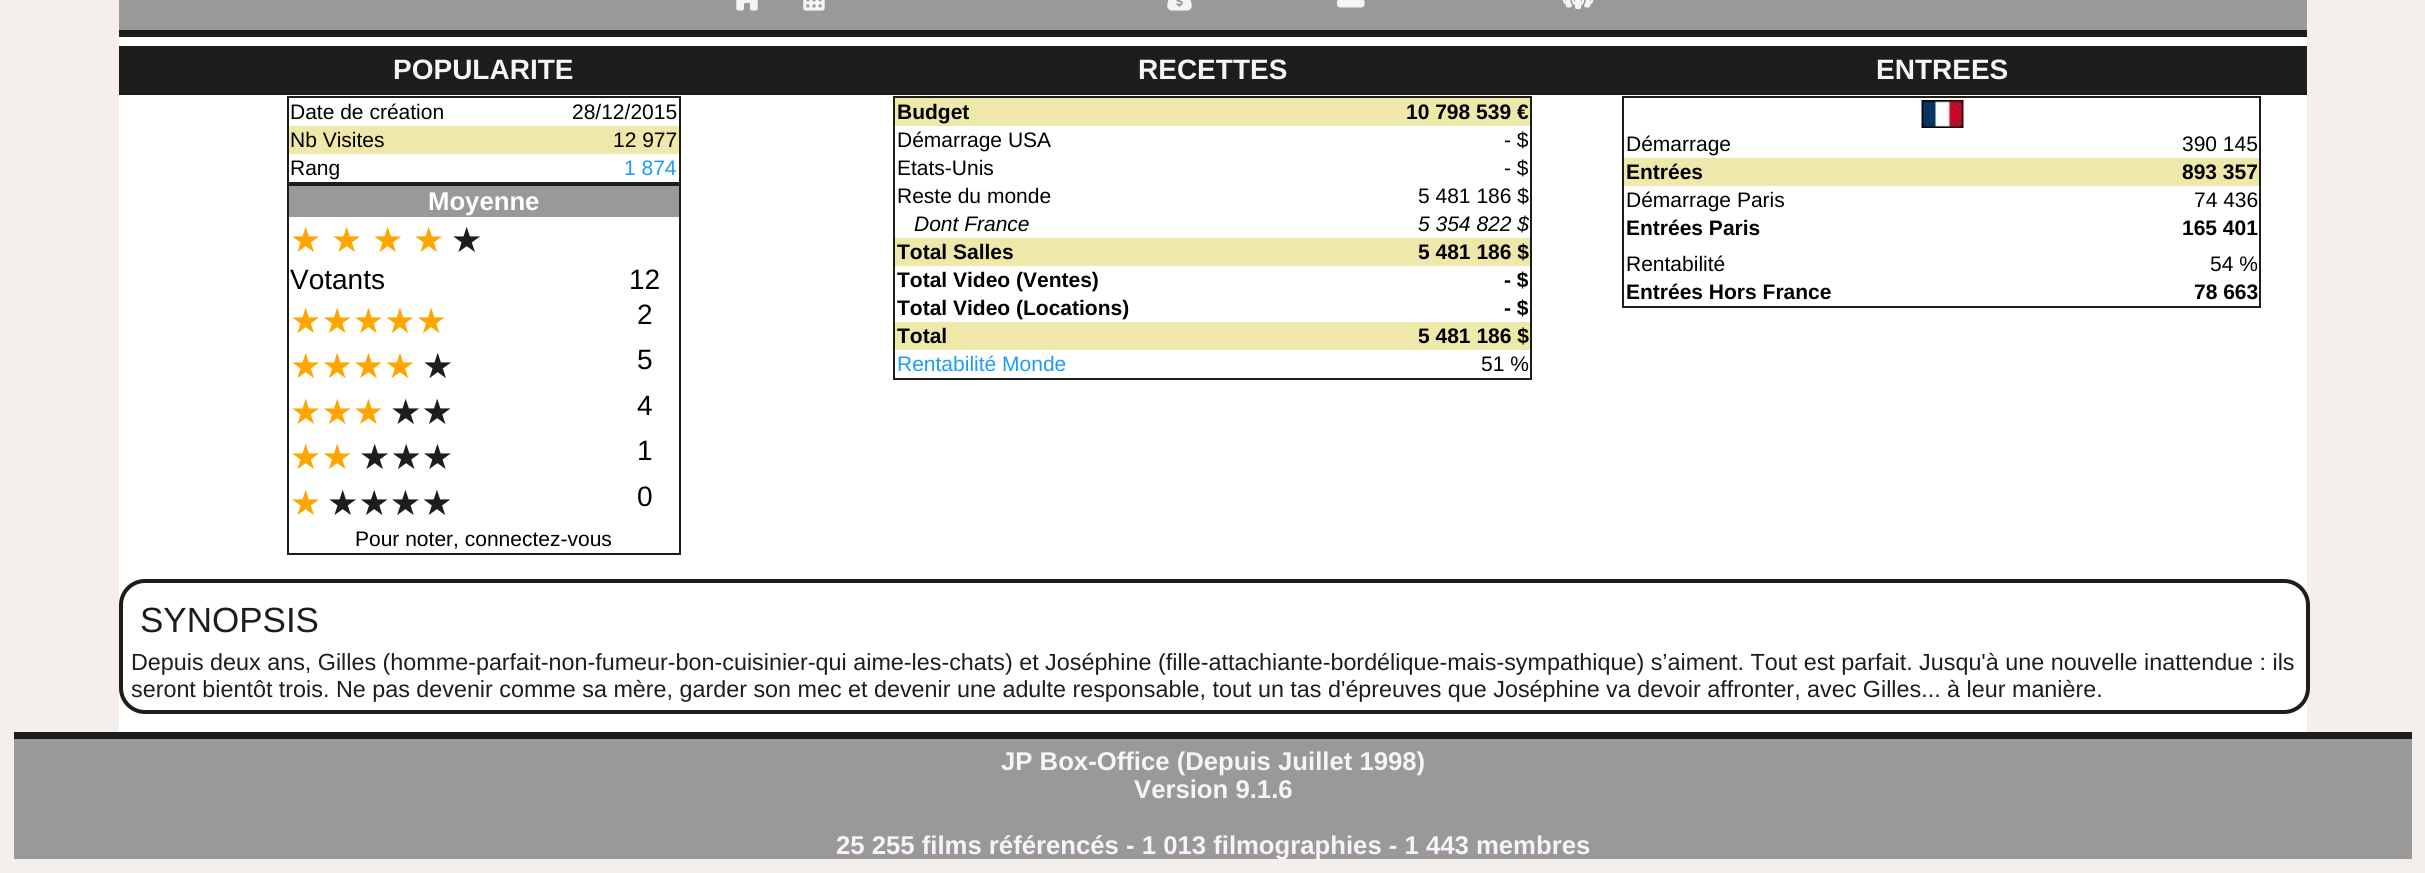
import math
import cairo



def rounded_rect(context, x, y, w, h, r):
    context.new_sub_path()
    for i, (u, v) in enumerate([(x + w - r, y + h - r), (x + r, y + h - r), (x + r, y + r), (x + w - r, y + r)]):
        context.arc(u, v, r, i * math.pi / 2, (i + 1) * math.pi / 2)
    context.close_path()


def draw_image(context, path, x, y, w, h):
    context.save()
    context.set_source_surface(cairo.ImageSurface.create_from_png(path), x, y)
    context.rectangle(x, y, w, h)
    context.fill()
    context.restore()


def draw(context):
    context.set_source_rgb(245 / 255, 239 / 255, 235 / 255)
    context.paint()
    context.set_source_rgb(1, 1, 1)
    context.rectangle(119, 37, 2188, 695)
    context.fill()
    context.set_source_rgb(153 / 255, 153 / 255, 153 / 255)
    context.rectangle(119, 0, 2188, 30)
    context.fill()
    context.set_source_rgb(29 / 255, 29 / 255, 27 / 255)
    context.rectangle(119, 30, 2188, 7)
    context.fill()
    draw_image(context, "images/1.png", 736, 0, 22, 11)
    draw_image(context, "images/2.png", 803, 0, 22, 11)
    draw_image(context, "images/3.png", 1167, 0, 25, 11)
    draw_image(context, "images/4.png", 1337, 0, 28, 8)
    draw_image(context, "images/5.png", 1562, 0, 32, 9)
    context.rectangle(119, 46, 2188, 49)
    context.fill()
    context.rectangle(287, 96, 394, 2)
    context.fill()
    context.rectangle(679, 96, 2, 88)
    context.fill()
    context.rectangle(287, 182, 394, 4)
    context.fill()
    context.rectangle(287, 96, 2, 88)
    context.fill()
    context.set_source_rgb(238 / 255, 232 / 255, 170 / 255)
    context.rectangle(289, 126, 390, 28)
    context.fill()
    context.set_source_rgb(29 / 255, 29 / 255, 27 / 255)
    context.rectangle(679, 184, 2, 371)
    context.fill()
    context.rectangle(287, 553, 394, 2)
    context.fill()
    context.rectangle(287, 184, 2, 371)
    context.fill()
    context.set_source_rgb(153 / 255, 153 / 255, 153 / 255)
    context.rectangle(289, 186, 390, 31)
    context.fill()
    context.set_source_rgb(29 / 255, 29 / 255, 27 / 255)
    context.rectangle(893, 96, 638, 2)
    context.fill()
    context.rectangle(1530, 96, 2, 284)
    context.fill()
    context.rectangle(893, 378, 638, 2)
    context.fill()
    context.rectangle(893, 96, 2, 284)
    context.fill()
    context.set_source_rgb(238 / 255, 232 / 255, 170 / 255)
    context.rectangle(895, 98, 635, 28)
    context.fill()
    context.rectangle(895, 238, 635, 28)
    context.fill()
    context.rectangle(895, 322, 635, 28)
    context.fill()
    context.set_source_rgb(29 / 255, 29 / 255, 27 / 255)
    context.rectangle(1622, 96, 639, 2)
    context.fill()
    context.rectangle(2259, 96, 2, 212)
    context.fill()
    context.rectangle(1622, 306, 639, 2)
    context.fill()
    context.rectangle(1622, 96, 2, 212)
    context.fill()
    draw_image(context, "images/6.png", 1921, 100, 43, 28)
    context.set_source_rgb(238 / 255, 232 / 255, 170 / 255)
    context.rectangle(1624, 158, 635, 28)
    context.fill()
    context.set_source_rgb(1, 1, 1)
    rounded_rect(context, 121, 581, 2187, 131, 24)
    context.fill_preserve()
    context.set_source_rgb(29 / 255, 29 / 255, 27 / 255)
    context.set_line_width(4)
    context.stroke()
    context.set_source_rgb(153 / 255, 153 / 255, 153 / 255)
    context.rectangle(14, 739, 2398, 120)
    context.fill()
    context.set_source_rgb(29 / 255, 29 / 255, 27 / 255)
    context.rectangle(14, 732, 2398, 7)
    context.fill()
    context.select_font_face("Liberation Sans", cairo.FontSlant.NORMAL, cairo.FontWeight.BOLD)
    context.set_font_size(28)
    context.set_source_rgb(247 / 255, 243 / 255, 247 / 255)
    context.move_to(393, 79)
    context.show_text("POPULARITE")
    context.move_to(1138, 79)
    context.show_text("RECETTES")
    context.move_to(1876, 79)
    context.show_text("ENTREES")
    context.select_font_face("Liberation Sans")
    context.set_font_size(21)
    context.set_source_rgb(0, 0, 0)
    context.move_to(290, 119)
    context.show_text("Date de création")
    context.move_to(572, 119)
    context.show_text("28/12/2015")
    context.move_to(290, 147)
    context.show_text("Nb Visites")
    context.move_to(613, 147)
    context.show_text("12 977")
    context.move_to(290, 175)
    context.show_text("Rang")
    context.set_source_rgb(29 / 255, 156 / 255, 247 / 255)
    context.move_to(624, 175)
    context.show_text("1 874")
    context.select_font_face("Liberation Sans", cairo.FontSlant.NORMAL, cairo.FontWeight.BOLD)
    context.set_font_size(25.7)
    context.set_source_rgb(1, 1, 1)
    context.move_to(428, 210)
    context.show_text("Moyenne")
    context.select_font_face("DejaVu Sans")
    context.set_font_size(35)
    context.set_source_rgb(1, 165 / 255, 0)
    context.move_to(290, 252)
    context.show_text("★")
    context.move_to(331, 252)
    context.show_text("★")
    context.move_to(372, 252)
    context.show_text("★")
    context.move_to(413, 252)
    context.show_text("★")
    context.set_source_rgb(29 / 255, 29 / 255, 27 / 255)
    context.move_to(451, 252)
    context.show_text("★")
    context.select_font_face("Liberation Sans")
    context.set_font_size(28)
    context.set_source_rgb(0, 0, 0)
    context.move_to(290, 289)
    context.show_text("Votants")
    context.move_to(629, 289)
    context.show_text("12")
    context.select_font_face("DejaVu Sans")
    context.set_font_size(35)
    context.set_source_rgb(1, 165 / 255, 0)
    context.move_to(290, 333)
    context.show_text("★★★★★")
    context.select_font_face("Liberation Sans")
    context.set_font_size(28)
    context.set_source_rgb(0, 0, 0)
    context.move_to(637, 324)
    context.show_text("2")
    context.select_font_face("DejaVu Sans")
    context.set_font_size(35)
    context.set_source_rgb(1, 165 / 255, 0)
    context.move_to(290, 378)
    context.show_text("★★★★")
    context.set_source_rgb(29 / 255, 29 / 255, 27 / 255)
    context.move_to(422, 378)
    context.show_text("★")
    context.select_font_face("Liberation Sans")
    context.set_font_size(28)
    context.set_source_rgb(0, 0, 0)
    context.move_to(637, 369)
    context.show_text("5")
    context.select_font_face("DejaVu Sans")
    context.set_font_size(35)
    context.set_source_rgb(1, 165 / 255, 0)
    context.move_to(290, 424)
    context.show_text("★★★")
    context.set_source_rgb(29 / 255, 29 / 255, 27 / 255)
    context.move_to(390, 424)
    context.show_text("★★")
    context.select_font_face("Liberation Sans")
    context.set_font_size(28)
    context.set_source_rgb(0, 0, 0)
    context.move_to(637, 415)
    context.show_text("4")
    context.select_font_face("DejaVu Sans")
    context.set_font_size(35)
    context.set_source_rgb(1, 165 / 255, 0)
    context.move_to(290, 469)
    context.show_text("★★")
    context.set_source_rgb(29 / 255, 29 / 255, 27 / 255)
    context.move_to(359, 469)
    context.show_text("★★★")
    context.select_font_face("Liberation Sans")
    context.set_font_size(28)
    context.set_source_rgb(0, 0, 0)
    context.move_to(637, 460)
    context.show_text("1")
    context.select_font_face("DejaVu Sans")
    context.set_font_size(35)
    context.set_source_rgb(1, 165 / 255, 0)
    context.move_to(290, 515)
    context.show_text("★")
    context.set_source_rgb(29 / 255, 29 / 255, 27 / 255)
    context.move_to(327, 515)
    context.show_text("★★★★")
    context.select_font_face("Liberation Sans")
    context.set_font_size(28)
    context.set_source_rgb(0, 0, 0)
    context.move_to(637, 506)
    context.show_text("0")
    context.set_font_size(21)
    context.move_to(355, 546)
    context.show_text("Pour noter, connectez-vous")
    context.select_font_face("Liberation Sans", cairo.FontSlant.NORMAL, cairo.FontWeight.BOLD)
    context.move_to(897, 119)
    context.show_text("Budget")
    context.move_to(1406, 119)
    context.show_text("10 798 539 €")
    context.select_font_face("Liberation Sans")
    context.move_to(897, 147)
    context.show_text("Démarrage USA")
    context.move_to(1504, 147)
    context.show_text("- $")
    context.move_to(897, 175)
    context.show_text("Etats-Unis")
    context.move_to(1504, 175)
    context.show_text("- $")
    context.move_to(897, 203)
    context.show_text("Reste du monde")
    context.move_to(1418, 203)
    context.show_text("5 481 186 $")
    context.select_font_face("Liberation Sans", cairo.FontSlant.ITALIC)
    context.move_to(914, 231)
    context.show_text("Dont France")
    context.move_to(1418, 231)
    context.show_text("5 354 822 $")
    context.select_font_face("Liberation Sans", cairo.FontSlant.NORMAL, cairo.FontWeight.BOLD)
    context.move_to(897, 259)
    context.show_text("Total Salles")
    context.move_to(1418, 259)
    context.show_text("5 481 186 $")
    context.move_to(897, 287)
    context.show_text("Total Video (Ventes)")
    context.move_to(1504, 287)
    context.show_text("- $")
    context.move_to(897, 315)
    context.show_text("Total Video (Locations)")
    context.move_to(1504, 315)
    context.show_text("- $")
    context.move_to(897, 343)
    context.show_text("Total")
    context.move_to(1418, 343)
    context.show_text("5 481 186 $")
    context.select_font_face("Liberation Sans")
    context.set_source_rgb(29 / 255, 156 / 255, 247 / 255)
    context.move_to(897, 371)
    context.show_text("Rentabilité Monde")
    context.set_source_rgb(0, 0, 0)
    context.move_to(1481, 371)
    context.show_text("51 %")
    context.move_to(1626, 151)
    context.show_text("Démarrage")
    context.move_to(2182, 151)
    context.show_text("390 145")
    context.select_font_face("Liberation Sans", cairo.FontSlant.NORMAL, cairo.FontWeight.BOLD)
    context.move_to(1626, 179)
    context.show_text("Entrées")
    context.move_to(2182, 179)
    context.show_text("893 357")
    context.select_font_face("Liberation Sans")
    context.move_to(1626, 207)
    context.show_text("Démarrage Paris")
    context.move_to(2194, 207)
    context.show_text("74 436")
    context.select_font_face("Liberation Sans", cairo.FontSlant.NORMAL, cairo.FontWeight.BOLD)
    context.move_to(1626, 235)
    context.show_text("Entrées Paris")
    context.move_to(2182, 235)
    context.show_text("165 401")
    context.select_font_face("Liberation Sans")
    context.move_to(1626, 271)
    context.show_text("Rentabilité")
    context.move_to(2210, 271)
    context.show_text("54 %")
    context.select_font_face("Liberation Sans", cairo.FontSlant.NORMAL, cairo.FontWeight.BOLD)
    context.move_to(1626, 299)
    context.show_text("Entrées Hors France")
    context.move_to(2194, 299)
    context.show_text("78 663")
    context.select_font_face("Liberation Sans")
    context.set_font_size(35)
    context.set_source_rgb(29 / 255, 29 / 255, 27 / 255)
    context.move_to(140, 632)
    context.show_text("SYNOPSIS")
    context.set_font_size(23.33)
    context.move_to(131, 670)
    context.show_text("Depuis deux ans, Gilles (homme-parfait-non-fumeur-bon-cuisinier-qui aime-les-chats) et Joséphine (fille-attachiante-bordélique-mais-sympathique) s’aiment. Tout est parfait. Jusqu'à une nouvelle inattendue : ils")
    context.move_to(131, 697)
    context.show_text("seront bientôt trois. Ne pas devenir comme sa mère, garder son mec et devenir une adulte responsable, tout un tas d'épreuves que Joséphine va devoir affronter, avec Gilles... à leur manière.")
    context.select_font_face("Liberation Sans", cairo.FontSlant.NORMAL, cairo.FontWeight.BOLD)
    context.set_font_size(25.7)
    context.set_source_rgb(247 / 255, 243 / 255, 247 / 255)
    context.move_to(1001, 770)
    context.show_text("JP Box-Office (Depuis Juillet 1998)")
    context.move_to(1134, 798)
    context.show_text("Version 9.1.6")
    context.move_to(836, 854)
    context.show_text("25 255 films référencés - 1 013 filmographies - 1 443 membres")


surface = cairo.ImageSurface(cairo.Format.RGB24, 2425, 873)
context = cairo.Context(surface)
options = cairo.FontOptions()
options.set_hint_metrics(cairo.HintMetrics.OFF)
options.set_hint_style(cairo.HintStyle.NONE)
context.set_font_options(options)
context.set_miter_limit(4)
draw(context)
surface.write_to_png("out.png")
